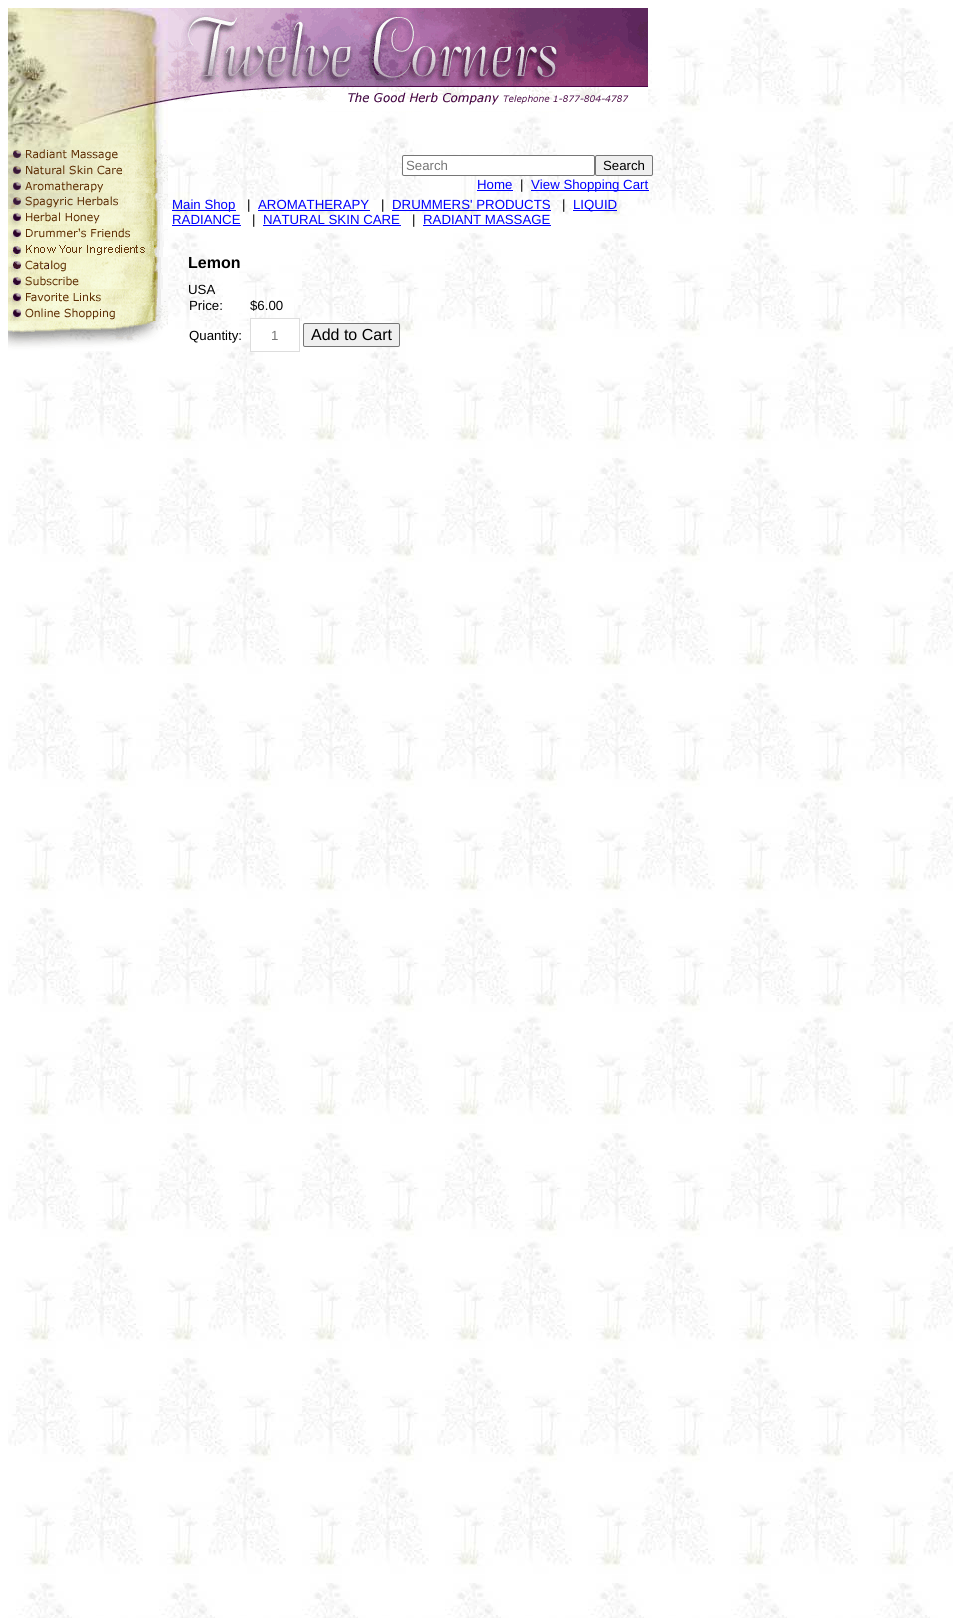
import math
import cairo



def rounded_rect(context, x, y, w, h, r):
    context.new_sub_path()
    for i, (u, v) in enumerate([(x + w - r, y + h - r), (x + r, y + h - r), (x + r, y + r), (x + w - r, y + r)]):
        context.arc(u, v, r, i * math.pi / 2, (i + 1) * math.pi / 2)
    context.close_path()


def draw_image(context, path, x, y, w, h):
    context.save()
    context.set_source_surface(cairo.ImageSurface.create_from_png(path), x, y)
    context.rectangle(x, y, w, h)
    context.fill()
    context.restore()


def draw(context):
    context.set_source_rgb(1, 1, 1)
    context.paint()
    draw_image(context, "images/1.png", 8, 8, 945, 1610)
    draw_image(context, "images/2.png", 8, 8, 160, 100)
    draw_image(context, "images/3.png", 168, 8, 230, 100)
    draw_image(context, "images/4.png", 398, 8, 250, 100)
    draw_image(context, "images/5.png", 8, 108, 160, 36)
    draw_image(context, "images/6.png", 8, 144, 160, 18)
    draw_image(context, "images/7.png", 8, 162, 160, 16)
    draw_image(context, "images/8.png", 8, 178, 160, 15)
    draw_image(context, "images/9.png", 8, 193, 160, 16)
    draw_image(context, "images/10.png", 8, 209, 155, 16)
    draw_image(context, "images/11.png", 8, 225, 160, 16)
    draw_image(context, "images/12.png", 8, 241, 160, 16)
    draw_image(context, "images/13.png", 8, 257, 160, 16)
    draw_image(context, "images/14.png", 8, 273, 160, 16)
    draw_image(context, "images/15.png", 8, 289, 160, 16)
    draw_image(context, "images/16.png", 8, 305, 160, 16)
    draw_image(context, "images/17.png", 8, 321, 160, 30)
    context.set_source_rgb(1, 1, 1)
    context.rectangle(263, 108, 294, 3)
    context.fill()
    rounded_rect(context, 402.5, 155.5, 192, 20, 1.5)
    context.fill_preserve()
    context.set_source_rgb(118 / 255, 118 / 255, 118 / 255)
    context.set_line_width(1)
    context.stroke()
    context.set_source_rgb(239 / 255, 239 / 255, 239 / 255)
    rounded_rect(context, 595.5, 155.5, 57, 20, 1.5)
    context.fill_preserve()
    context.set_source_rgb(118 / 255, 118 / 255, 118 / 255)
    context.stroke()
    context.set_source_rgb(0, 0, 1)
    context.rectangle(477, 190, 36, 1)
    context.fill()
    context.rectangle(531, 190, 118, 1)
    context.fill()
    context.rectangle(172, 210, 64, 1)
    context.fill()
    context.rectangle(258, 210, 112, 1)
    context.fill()
    context.rectangle(392, 210, 159, 1)
    context.fill()
    context.rectangle(573, 210, 44, 1)
    context.fill()
    context.rectangle(172, 225, 69, 1)
    context.fill()
    context.rectangle(263, 225, 138, 1)
    context.fill()
    context.rectangle(423, 225, 128, 1)
    context.fill()
    context.set_source_rgb(1, 1, 1)
    context.rectangle(251, 319, 47, 32)
    context.fill()
    context.rectangle(250.5, 318.5, 49, 33)
    context.set_source_rgb(221 / 255, 221 / 255, 221 / 255)
    context.stroke()
    context.set_source_rgb(239 / 255, 239 / 255, 239 / 255)
    rounded_rect(context, 303.5, 323.5, 96, 23, 1.5)
    context.fill_preserve()
    context.set_source_rgb(118 / 255, 118 / 255, 118 / 255)
    context.stroke()
    context.select_font_face("Liberation Sans")
    context.set_font_size(13.25)
    context.set_source_rgb(117 / 255, 117 / 255, 117 / 255)
    context.move_to(406, 170)
    context.show_text("Search")
    context.set_source_rgb(0, 0, 0)
    context.move_to(603, 170)
    context.show_text("Search")
    context.set_source_rgb(0, 0, 1)
    context.move_to(477, 189)
    context.show_text("Home")
    context.set_source_rgb(0, 0, 0)
    context.move_to(520, 189)
    context.show_text("|")
    context.set_source_rgb(0, 0, 1)
    context.move_to(531, 189)
    context.show_text("View Shopping Cart")
    context.move_to(172, 209)
    context.show_text("Main Shop")
    context.set_source_rgb(0, 0, 0)
    context.move_to(247, 209)
    context.show_text("|")
    context.set_source_rgb(0, 0, 1)
    context.move_to(258, 209)
    context.show_text("AROMATHERAPY")
    context.set_source_rgb(0, 0, 0)
    context.move_to(381, 209)
    context.show_text("|")
    context.set_source_rgb(0, 0, 1)
    context.move_to(392, 209)
    context.show_text("DRUMMERS' PRODUCTS")
    context.set_source_rgb(0, 0, 0)
    context.move_to(562, 209)
    context.show_text("|")
    context.set_source_rgb(0, 0, 1)
    context.move_to(573, 209)
    context.show_text("LIQUID")
    context.move_to(172, 224)
    context.show_text("RADIANCE")
    context.set_source_rgb(0, 0, 0)
    context.move_to(252, 224)
    context.show_text("|")
    context.set_source_rgb(0, 0, 1)
    context.move_to(263, 224)
    context.show_text("NATURAL SKIN CARE")
    context.set_source_rgb(0, 0, 0)
    context.move_to(412, 224)
    context.show_text("|")
    context.set_source_rgb(0, 0, 1)
    context.move_to(423, 224)
    context.show_text("RADIANT MASSAGE")
    context.select_font_face("Liberation Sans", cairo.FontSlant.NORMAL, cairo.FontWeight.BOLD)
    context.set_font_size(16)
    context.set_source_rgb(0, 0, 0)
    context.move_to(188, 268)
    context.show_text("Lemon")
    context.select_font_face("Liberation Sans")
    context.set_font_size(13.25)
    context.move_to(188, 294)
    context.show_text("USA")
    context.move_to(189, 310)
    context.show_text("Price:")
    context.move_to(250, 310)
    context.show_text("$6.00")
    context.move_to(189, 340)
    context.show_text("Quantity:")
    context.set_source_rgb(117 / 255, 117 / 255, 117 / 255)
    context.move_to(271, 340)
    context.show_text("1")
    context.set_font_size(16)
    context.set_source_rgb(0, 0, 0)
    context.move_to(311, 340)
    context.show_text("Add to Cart")


surface = cairo.ImageSurface(cairo.Format.RGB24, 953, 1618)
context = cairo.Context(surface)
options = cairo.FontOptions()
options.set_hint_metrics(cairo.HintMetrics.OFF)
options.set_hint_style(cairo.HintStyle.NONE)
context.set_font_options(options)
context.set_miter_limit(4)
draw(context)
surface.write_to_png("out.png")
